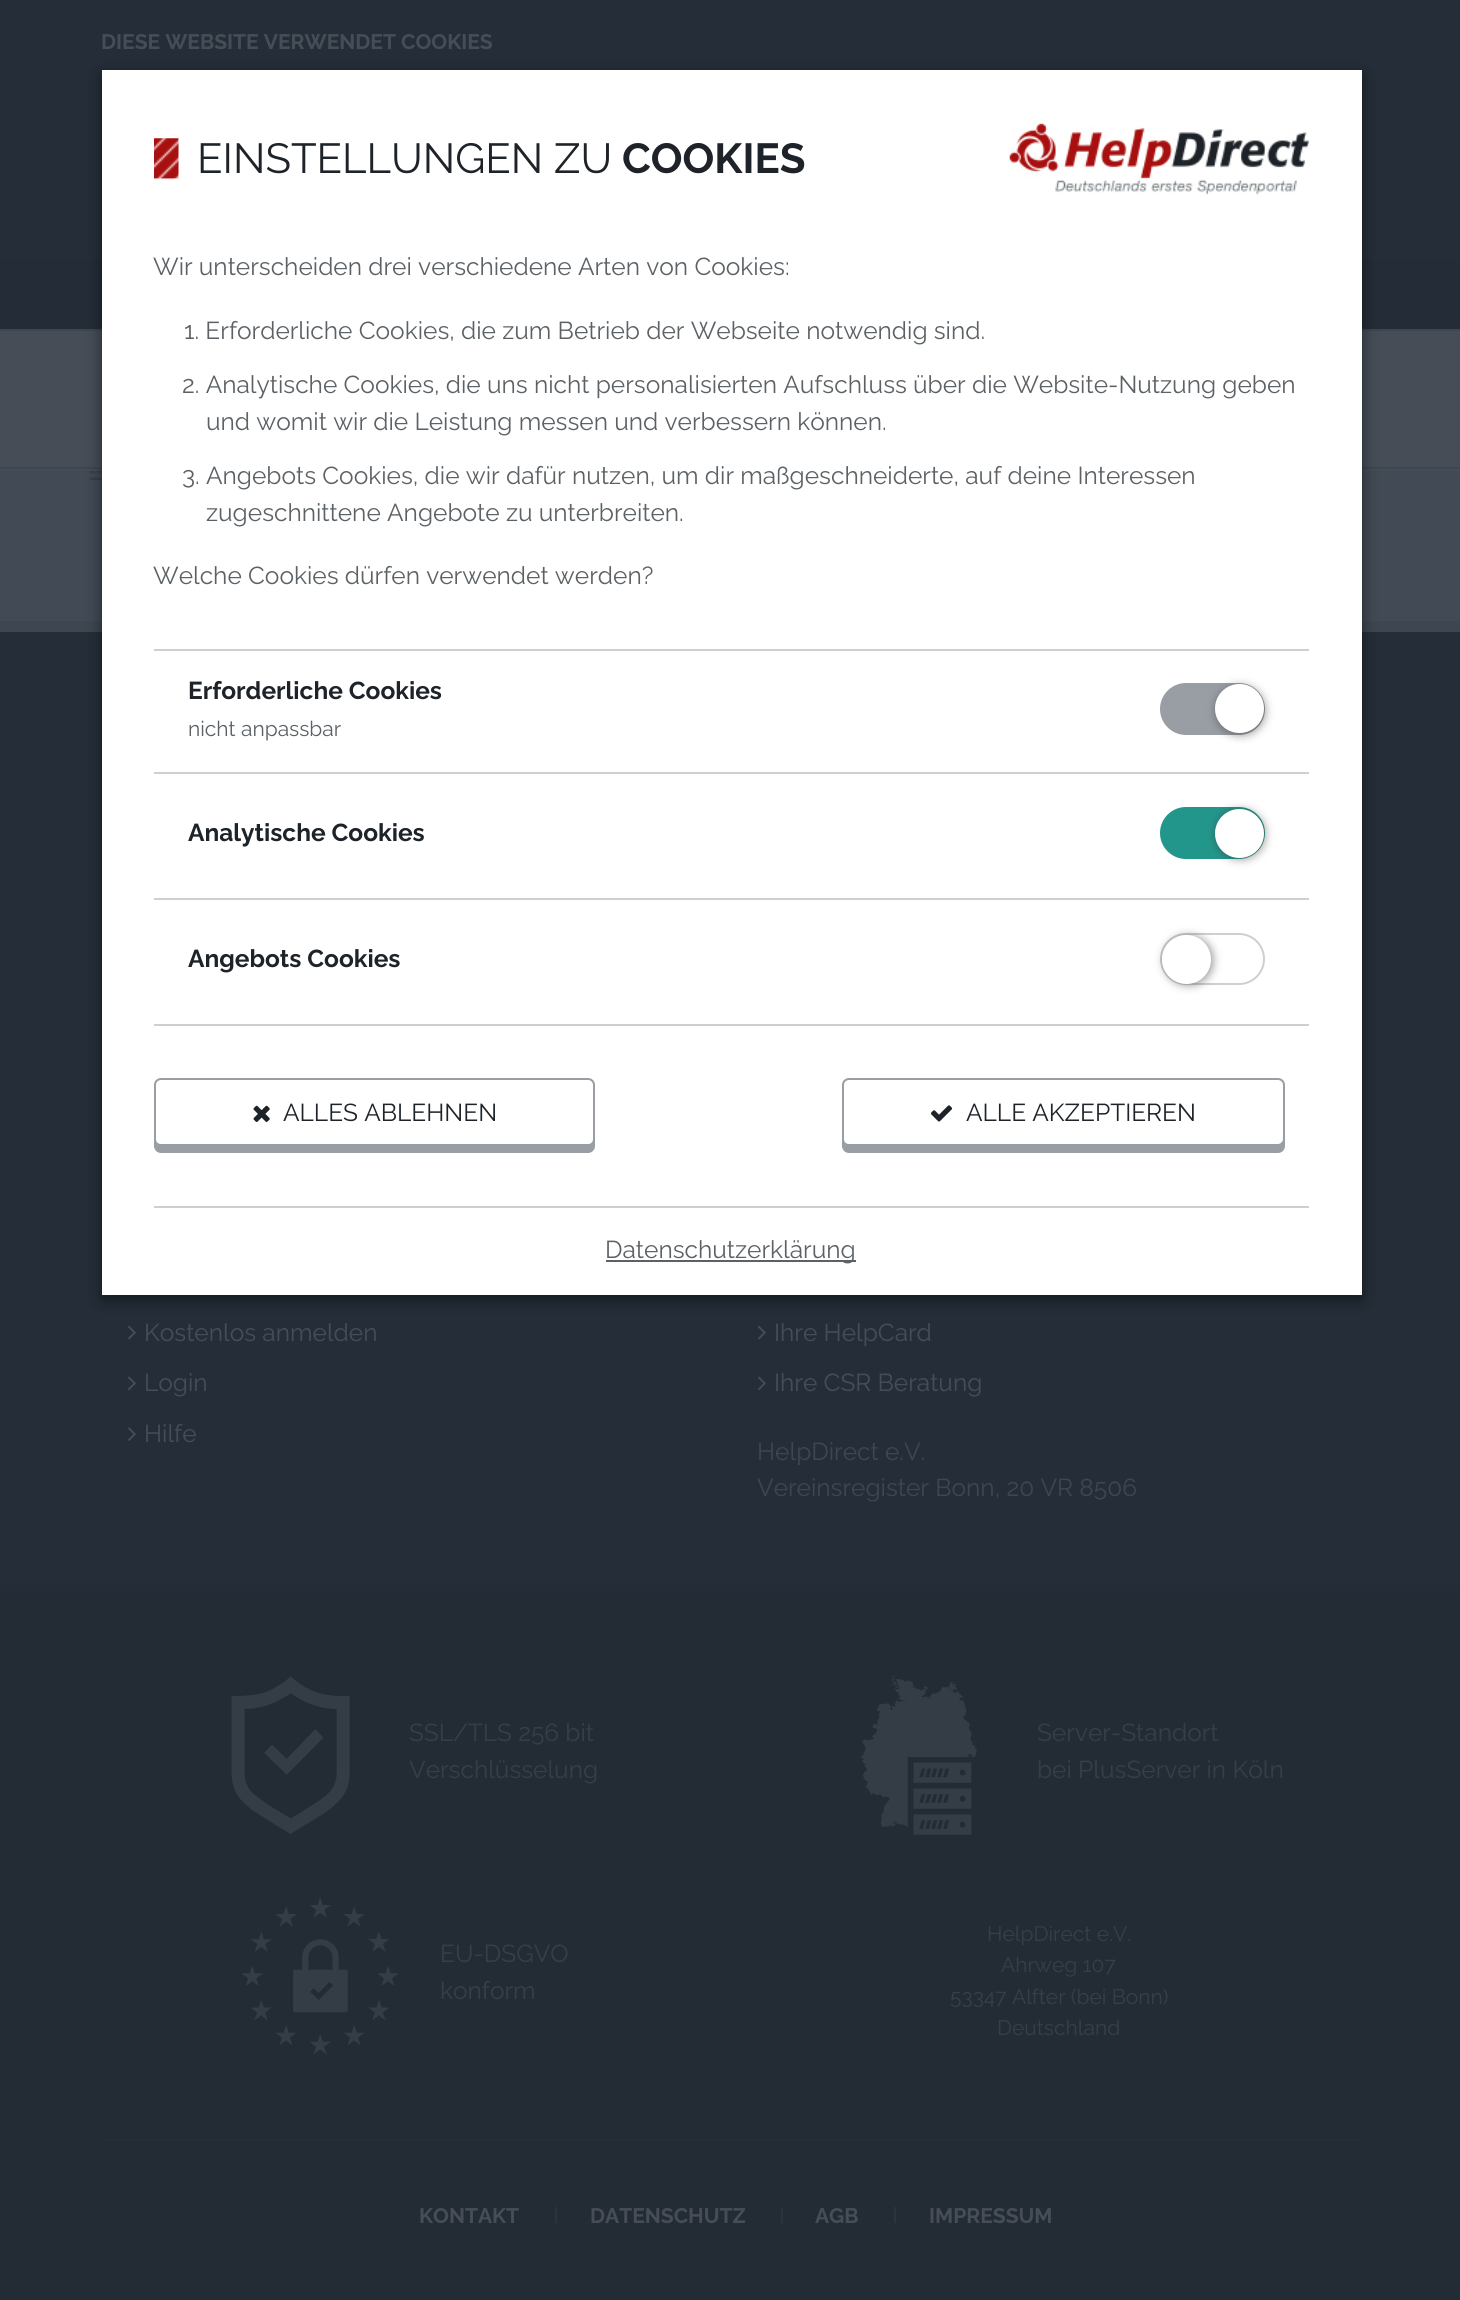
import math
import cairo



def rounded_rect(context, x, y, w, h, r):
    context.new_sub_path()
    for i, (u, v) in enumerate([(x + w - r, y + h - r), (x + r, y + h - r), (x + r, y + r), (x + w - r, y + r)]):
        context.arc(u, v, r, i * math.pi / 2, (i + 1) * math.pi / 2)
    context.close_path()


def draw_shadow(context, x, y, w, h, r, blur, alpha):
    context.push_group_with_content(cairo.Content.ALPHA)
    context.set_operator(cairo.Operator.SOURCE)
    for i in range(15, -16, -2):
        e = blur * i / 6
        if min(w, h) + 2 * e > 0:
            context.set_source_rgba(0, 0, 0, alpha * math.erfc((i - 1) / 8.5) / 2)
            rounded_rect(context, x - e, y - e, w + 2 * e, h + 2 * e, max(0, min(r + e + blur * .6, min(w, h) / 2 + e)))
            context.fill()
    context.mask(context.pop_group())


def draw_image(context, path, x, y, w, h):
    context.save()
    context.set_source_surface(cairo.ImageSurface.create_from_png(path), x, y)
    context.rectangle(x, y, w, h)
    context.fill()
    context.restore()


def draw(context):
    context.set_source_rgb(66 / 255, 74 / 255, 85 / 255)
    context.paint()
    context.set_source_rgb(37 / 255, 46 / 255, 56 / 255)
    context.rectangle(0, 0, 1460, 259)
    context.fill()
    context.set_source_rgb(36 / 255, 44 / 255, 55 / 255)
    context.rectangle(0, 259, 1460, 70)
    context.fill()
    context.set_source_rgb(70 / 255, 77 / 255, 87 / 255)
    context.rectangle(0, 331, 1460, 140)
    context.fill()
    context.set_source_rgb(62 / 255, 70 / 255, 80 / 255)
    context.rectangle(0, 467, 1460, 2)
    context.fill()
    context.rectangle(0, 329, 1460, 2)
    context.fill()
    context.rectangle(0, 621, 1460, 11)
    context.fill()
    draw_image(context, "images/1.png", 89, 471, 13, 10)
    context.set_source_rgb(37 / 255, 46 / 255, 56 / 255)
    context.rectangle(0, 632, 1460, 952)
    context.fill()
    context.set_source_rgb(36 / 255, 44 / 255, 55 / 255)
    context.rectangle(0, 1584, 1460, 9)
    context.fill()
    draw_image(context, "images/2.png", 128, 1325, 8, 15)
    draw_image(context, "images/3.png", 128, 1376, 8, 15)
    draw_image(context, "images/4.png", 128, 1427, 8, 14)
    draw_image(context, "images/2.png", 758, 1325, 8, 15)
    draw_image(context, "images/3.png", 758, 1376, 8, 15)
    context.set_source_rgb(35 / 255, 43 / 255, 53 / 255)
    context.rectangle(0, 1593, 1460, 707)
    context.fill()
    draw_image(context, "images/5.png", 231, 1676, 119, 158)
    draw_image(context, "images/6.png", 860, 1675, 117, 160)
    draw_image(context, "images/7.png", 241, 1897, 158, 158)
    context.set_source_rgb(37 / 255, 46 / 255, 56 / 255)
    context.rectangle(102, 2139, 1260, 2)
    context.fill()
    context.set_source_rgb(43 / 255, 51 / 255, 61 / 255)
    context.rectangle(555, 2207, 2, 16)
    context.fill()
    context.rectangle(781, 2207, 2, 16)
    context.fill()
    context.rectangle(894, 2207, 2, 16)
    context.fill()
    context.set_source_rgb(0, 0, 0)
    draw_shadow(context, 102, 75, 1260, 1225, 0, 8, 0.5)
    context.set_source_rgb(1, 1, 1)
    context.rectangle(102, 70, 1260, 1225)
    context.fill()
    draw_image(context, "images/8.png", 1009, 123, 300, 72)
    draw_image(context, "images/9.png", 154, 138, 25, 42)
    context.set_source_rgb(206 / 255, 207 / 255, 210 / 255)
    context.rectangle(154, 649, 1155, 2)
    context.fill()
    context.rectangle(154, 772, 1155, 2)
    context.fill()
    context.set_source_rgb(153 / 255, 157 / 255, 164 / 255)
    rounded_rect(context, 1161, 684, 103, 50, 25)
    context.fill_preserve()
    context.stroke()
    context.set_source_rgb(50 / 255, 50 / 255, 50 / 255)
    draw_shadow(context, 1216, 686, 49, 49, 24.5, 4.5, 0.5)
    context.set_source_rgb(1, 1, 1)
    context.arc(1239.5, 708.5, 24.5, 0, 2 * math.pi)
    context.fill()
    context.set_source_rgb(206 / 255, 207 / 255, 210 / 255)
    context.rectangle(154, 898, 1155, 2)
    context.fill()
    context.set_source_rgb(35 / 255, 150 / 255, 139 / 255)
    rounded_rect(context, 1161, 808, 103, 50, 25)
    context.fill_preserve()
    context.stroke()
    context.set_source_rgb(50 / 255, 50 / 255, 50 / 255)
    draw_shadow(context, 1216, 810, 49, 49, 24.5, 4.5, 0.5)
    context.set_source_rgb(1, 1, 1)
    context.arc(1239.5, 833.5, 24.5, 0, 2 * math.pi)
    context.fill()
    context.set_source_rgb(206 / 255, 207 / 255, 210 / 255)
    context.rectangle(154, 1024, 1155, 2)
    context.fill()
    rounded_rect(context, 1161, 934, 103, 50, 25)
    context.stroke()
    context.set_source_rgb(50 / 255, 50 / 255, 50 / 255)
    draw_shadow(context, 1164, 936, 49, 49, 24.5, 4.5, 0.5)
    context.set_source_rgb(1, 1, 1)
    context.arc(1186.5, 959.5, 24.5, 0, 2 * math.pi)
    context.fill()
    context.set_source_rgb(153 / 255, 157 / 255, 164 / 255)
    context.new_path()
    context.move_to(156, 1139)
    context.line_to(156, 1147)
    context.curve_to(156, 1150, 158, 1152, 161, 1152)
    context.line_to(588, 1152)
    context.curve_to(591, 1152, 593, 1150, 593, 1147)
    context.line_to(593, 1139)
    context.curve_to(593, 1142, 591, 1144, 588, 1144)
    context.line_to(161, 1144)
    context.curve_to(158, 1144, 156, 1142, 156, 1139)
    context.close_path()
    context.fill()
    rounded_rect(context, 155, 1079, 439, 73, 6)
    context.stroke()
    draw_image(context, "images/10.png", 253, 1105, 17, 17)
    context.new_path()
    context.move_to(844, 1139)
    context.line_to(844, 1147)
    context.curve_to(844, 1150, 846, 1152, 849, 1152)
    context.line_to(1278, 1152)
    context.curve_to(1281, 1152, 1283, 1150, 1283, 1147)
    context.line_to(1283, 1139)
    context.curve_to(1283, 1142, 1280, 1144, 1278, 1144)
    context.line_to(849, 1144)
    context.curve_to(846, 1144, 844, 1142, 844, 1139)
    context.close_path()
    context.fill()
    rounded_rect(context, 843, 1079, 441, 73, 6)
    context.stroke()
    draw_image(context, "images/11.png", 930, 1105, 23, 17)
    context.set_source_rgb(206 / 255, 207 / 255, 210 / 255)
    context.rectangle(154, 1206, 1155, 2)
    context.fill()
    context.set_source_rgb(91 / 255, 97 / 255, 101 / 255)
    context.rectangle(606, 1260, 250, 2)
    context.fill()
    context.select_font_face("Raleway", cairo.FontSlant.NORMAL, cairo.FontWeight.BOLD)
    context.set_font_size(21)
    context.set_source_rgb(70 / 255, 77 / 255, 87 / 255)
    context.move_to(101, 49)
    context.show_text("DIESE WEBSITE VERWENDET COOKIES")
    context.select_font_face("Raleway")
    context.set_font_size(24.5)
    context.move_to(144, 1341)
    context.show_text("Kostenlos anmelden")
    context.move_to(144, 1391)
    context.show_text("Login")
    context.move_to(144, 1442)
    context.show_text("Hilfe")
    context.move_to(774, 1341)
    context.show_text("Ihre HelpCard")
    context.move_to(774, 1391)
    context.show_text("Ihre CSR Beratung")
    context.set_source_rgb(62 / 255, 70 / 255, 80 / 255)
    context.move_to(757, 1460)
    context.show_text("HelpDirect e.V.")
    context.move_to(757, 1496)
    context.show_text("Vereinsregister Bonn, 20 VR 8506")
    context.set_source_rgb(54 / 255, 63 / 255, 73 / 255)
    context.move_to(409, 1741)
    context.show_text("SSL/TLS 256 bit")
    context.move_to(409, 1778)
    context.show_text("Verschlüsselung")
    context.move_to(1037, 1741)
    context.show_text("Server-Standort")
    context.move_to(1037, 1778)
    context.show_text("bei PlusServer in Köln")
    context.move_to(440, 1962)
    context.show_text("EU-DSGVO")
    context.move_to(440, 1999)
    context.show_text("konform")
    context.set_font_size(21)
    context.move_to(987, 1941)
    context.show_text("HelpDirect e.V.")
    context.move_to(1001, 1972)
    context.show_text("Ahrweg 107")
    context.move_to(950, 2004)
    context.show_text("53347 Alfter (bei Bonn)")
    context.move_to(997, 2035)
    context.show_text("Deutschland")
    context.select_font_face("Raleway", cairo.FontSlant.NORMAL, cairo.FontWeight.BOLD)
    context.set_source_rgb(70 / 255, 77 / 255, 87 / 255)
    context.move_to(419, 2223)
    context.show_text("KONTAKT")
    context.move_to(590, 2223)
    context.show_text("DATENSCHUTZ")
    context.move_to(815, 2223)
    context.show_text("AGB")
    context.move_to(929, 2223)
    context.show_text("IMPRESSUM")
    context.select_font_face("Raleway")
    context.set_font_size(42)
    context.set_source_rgb(30 / 255, 35 / 255, 41 / 255)
    context.move_to(197, 173)
    context.show_text("EINSTELLUNGEN ZU")
    context.select_font_face("Raleway", cairo.FontSlant.NORMAL, cairo.FontWeight.BOLD)
    context.move_to(622, 173)
    context.show_text("COOKIES")
    context.select_font_face("Raleway")
    context.set_font_size(24.5)
    context.set_source_rgb(91 / 255, 97 / 255, 101 / 255)
    context.move_to(153, 275)
    context.show_text("Wir unterscheiden drei verschiedene Arten von Cookies:")
    context.move_to(184, 339)
    context.show_text("1. Erforderliche Cookies, die zum Betrieb der Webseite notwendig sind.")
    context.move_to(182, 393)
    context.show_text("2. Analytische Cookies, die uns nicht personalisierten Aufschluss über die Website-Nutzung geben")
    context.move_to(206, 430)
    context.show_text("und womit wir die Leistung messen und verbessern können.")
    context.move_to(182, 484)
    context.show_text("3. Angebots Cookies, die wir dafür nutzen, um dir maßgeschneiderte, auf deine Interessen")
    context.move_to(206, 521)
    context.show_text("zugeschnittene Angebote zu unterbreiten.")
    context.move_to(153, 584)
    context.show_text("Welche Cookies dürfen verwendet werden?")
    context.select_font_face("Raleway", cairo.FontSlant.NORMAL, cairo.FontWeight.BOLD)
    context.set_source_rgb(30 / 255, 35 / 255, 41 / 255)
    context.move_to(188, 699)
    context.show_text("Erforderliche Cookies")
    context.select_font_face("Raleway")
    context.set_font_size(21)
    context.set_source_rgb(91 / 255, 97 / 255, 101 / 255)
    context.move_to(188, 736)
    context.show_text("nicht anpassbar")
    context.select_font_face("Raleway", cairo.FontSlant.NORMAL, cairo.FontWeight.BOLD)
    context.set_font_size(24.5)
    context.set_source_rgb(30 / 255, 35 / 255, 41 / 255)
    context.move_to(188, 841)
    context.show_text("Analytische Cookies")
    context.move_to(188, 967)
    context.show_text("Angebots Cookies")
    context.select_font_face("Raleway")
    context.move_to(283, 1121)
    context.show_text("ALLES ABLEHNEN")
    context.move_to(966, 1121)
    context.show_text("ALLE AKZEPTIEREN")
    context.set_source_rgb(91 / 255, 97 / 255, 101 / 255)
    context.move_to(605, 1258)
    context.show_text("Datenschutzerklärung")


surface = cairo.ImageSurface(cairo.Format.RGB24, 1460, 2300)
context = cairo.Context(surface)
options = cairo.FontOptions()
options.set_hint_metrics(cairo.HintMetrics.OFF)
options.set_hint_style(cairo.HintStyle.NONE)
context.set_font_options(options)
context.set_miter_limit(4)
draw(context)
surface.write_to_png("out.png")
